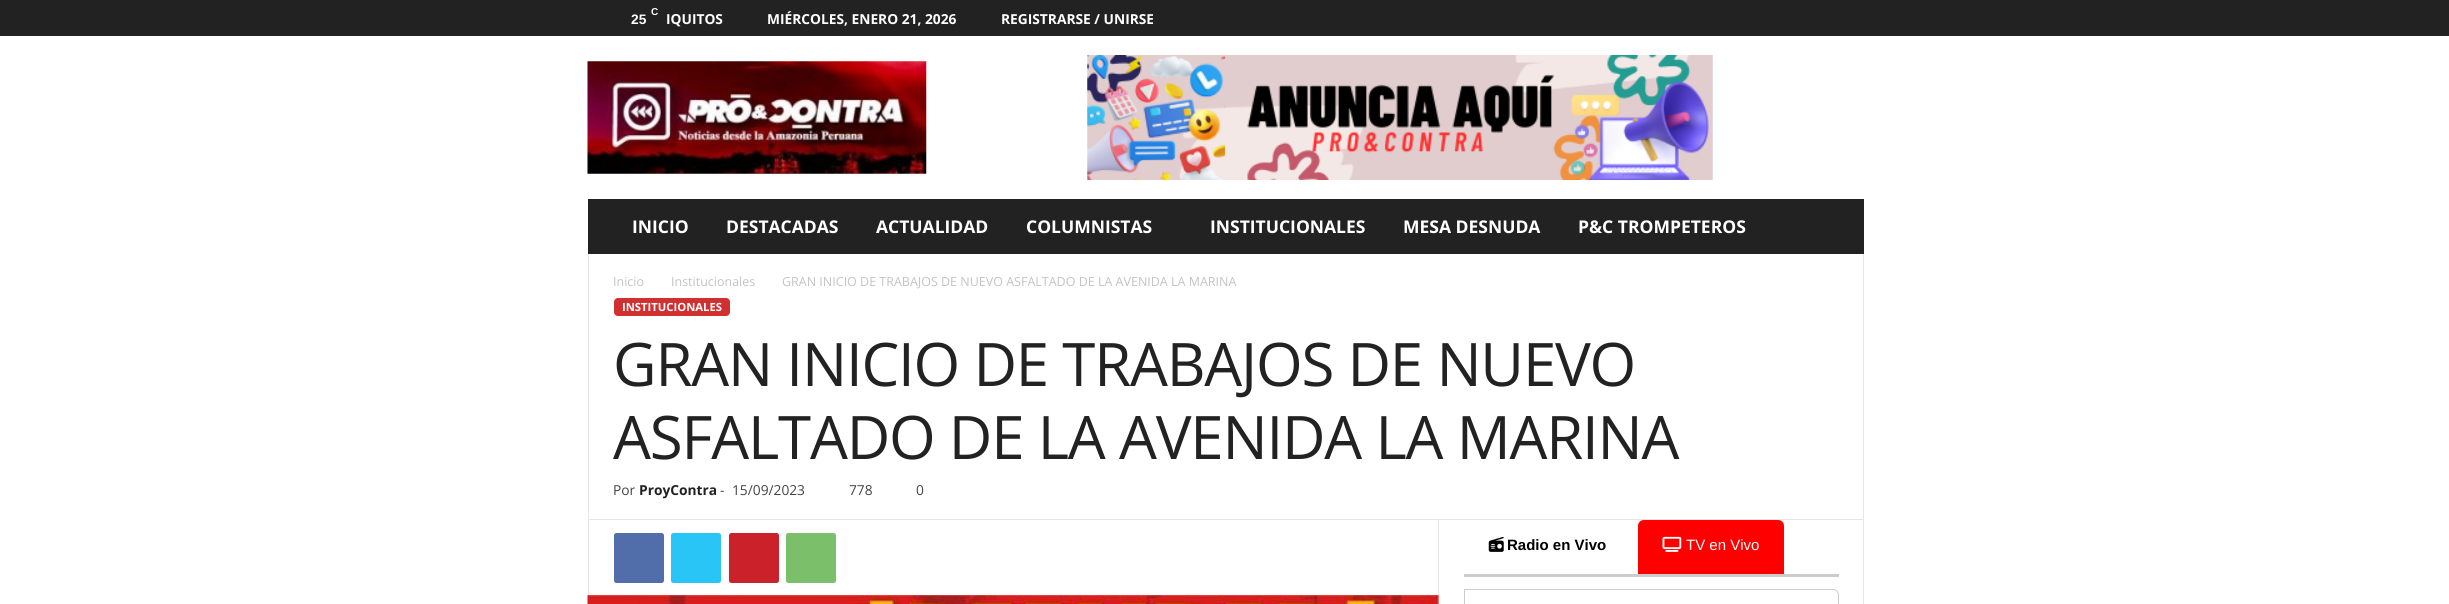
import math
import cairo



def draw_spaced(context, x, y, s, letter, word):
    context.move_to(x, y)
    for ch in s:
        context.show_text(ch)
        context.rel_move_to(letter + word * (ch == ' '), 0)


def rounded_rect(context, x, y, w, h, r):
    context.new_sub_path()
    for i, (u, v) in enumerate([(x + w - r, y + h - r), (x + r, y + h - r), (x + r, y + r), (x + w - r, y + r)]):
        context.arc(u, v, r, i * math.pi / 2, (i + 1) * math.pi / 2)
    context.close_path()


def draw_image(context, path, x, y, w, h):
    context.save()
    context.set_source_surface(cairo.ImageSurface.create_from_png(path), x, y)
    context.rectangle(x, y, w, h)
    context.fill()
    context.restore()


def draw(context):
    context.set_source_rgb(1, 1, 1)
    context.paint()
    context.set_source_rgb(34 / 255, 34 / 255, 34 / 255)
    context.rectangle(0, 0, 2449, 36)
    context.fill()
    draw_image(context, "images/1.png", 587, 61, 340, 113)
    draw_image(context, "images/2.png", 1087, 55, 626, 125)
    draw_image(context, "images/3.png", 1087, 55, 626, 125)
    context.rectangle(588, 199, 1276, 55)
    context.fill()
    context.set_source_rgb(230 / 255, 230 / 255, 230 / 255)
    context.rectangle(588, 254, 1, 341)
    context.fill()
    context.set_source_rgb(209 / 255, 48 / 255, 48 / 255)
    rounded_rect(context, 614, 298, 116, 18, 4)
    context.fill()
    context.set_source_rgb(230 / 255, 230 / 255, 230 / 255)
    context.rectangle(1438, 519, 1, 85)
    context.fill()
    context.rectangle(589, 519, 1274, 1)
    context.fill()
    context.set_source_rgb(81 / 255, 110 / 255, 171 / 255)
    rounded_rect(context, 614, 533, 50, 50, 2.5)
    context.fill()
    context.set_source_rgb(41 / 255, 197 / 255, 246 / 255)
    rounded_rect(context, 671, 533, 50, 50, 2.5)
    context.fill()
    context.set_source_rgb(202 / 255, 33 / 255, 42 / 255)
    rounded_rect(context, 729, 533, 50, 50, 2.5)
    context.fill()
    context.set_source_rgb(123 / 255, 191 / 255, 106 / 255)
    rounded_rect(context, 786, 533, 50, 50, 2.5)
    context.fill()
    draw_image(context, "images/4.png", 587, 595, 852, 9)
    context.set_source_rgb(204 / 255, 204 / 255, 204 / 255)
    context.rectangle(1464, 574, 375, 3)
    context.fill()
    draw_image(context, "images/5.png", 1488, 536, 16, 16)
    context.set_source_rgb(1, 0, 0)
    context.new_path()
    context.move_to(1644, 520)
    context.line_to(1778, 520)
    context.curve_to(1781.5, 520, 1784, 522.5, 1784, 526)
    context.line_to(1784, 574)
    context.line_to(1638, 574)
    context.line_to(1638, 526)
    context.curve_to(1638, 522.5, 1640.5, 520, 1644, 520)
    context.close_path()
    context.fill()
    draw_image(context, "images/6.png", 1662, 536, 20, 16)
    context.new_path()
    context.move_to(1464.5, 589.5)
    context.line_to(1833, 589.5)
    context.curve_to(1836, 589.5, 1838.5, 592, 1838.5, 595)
    context.line_to(1838.5, 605)
    context.curve_to(1838.5, 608, 1836, 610.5, 1833, 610.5)
    context.line_to(1470, 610.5)
    context.curve_to(1467, 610.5, 1464.5, 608, 1464.5, 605)
    context.close_path()
    context.set_source_rgb(204 / 255, 204 / 255, 204 / 255)
    context.set_line_width(1)
    context.stroke()
    context.set_source_rgb(230 / 255, 230 / 255, 230 / 255)
    context.rectangle(1863, 254, 1, 350)
    context.fill()
    context.select_font_face("Liberation Sans", cairo.FontSlant.NORMAL, cairo.FontWeight.BOLD)
    context.set_font_size(10)
    context.set_source_rgb(1, 1, 1)
    context.move_to(651, 15)
    context.show_text("C")
    context.set_font_size(13.75)
    context.move_to(631, 24)
    context.show_text("25")
    context.select_font_face("Open Sans", cairo.FontSlant.NORMAL, cairo.FontWeight.BOLD)
    context.move_to(666, 24)
    context.show_text("IQUITOS")
    context.move_to(767, 24)
    context.show_text("MIÉRCOLES, ENERO 21, 2026")
    context.move_to(1001, 24)
    context.show_text("REGISTRARSE / UNIRSE")
    context.set_font_size(17.5)
    context.move_to(632, 233)
    context.show_text("INICIO")
    context.move_to(726, 233)
    context.show_text("DESTACADAS")
    context.move_to(876, 233)
    context.show_text("ACTUALIDAD")
    context.move_to(1026, 233)
    context.show_text("COLUMNISTAS")
    context.move_to(1210, 233)
    context.show_text("INSTITUCIONALES")
    context.move_to(1403, 233)
    context.show_text("MESA DESNUDA")
    context.move_to(1578, 233)
    context.show_text("P&C TROMPETEROS")
    context.select_font_face("Open Sans")
    context.set_font_size(12.5)
    context.set_source_rgb(195 / 255, 195 / 255, 195 / 255)
    context.move_to(613, 286)
    context.show_text("Inicio")
    context.move_to(671, 286)
    context.show_text("Institucionales")
    context.move_to(782, 286)
    context.show_text("GRAN INICIO DE TRABAJOS DE NUEVO ASFALTADO DE LA AVENIDA LA MARINA")
    context.select_font_face("Open Sans", cairo.FontSlant.NORMAL, cairo.FontWeight.BOLD)
    context.set_font_size(11.25)
    context.set_source_rgb(1, 1, 1)
    context.move_to(622, 311)
    context.show_text("INSTITUCIONALES")
    context.select_font_face("Open Sans")
    context.set_font_size(60)
    context.set_source_rgb(34 / 255, 34 / 255, 34 / 255)
    draw_spaced(context, 613, 386, "GRAN INICIO DE TRABAJOS DE NUEVO", -1.2, 0)
    draw_spaced(context, 613, 459, "ASFALTADO DE LA AVENIDA LA MARINA", -1.2, 0)
    context.set_font_size(13.75)
    context.set_source_rgb(68 / 255, 68 / 255, 68 / 255)
    context.move_to(613, 495)
    context.show_text("Por")
    context.select_font_face("Open Sans", cairo.FontSlant.NORMAL, cairo.FontWeight.BOLD)
    context.set_source_rgb(34 / 255, 34 / 255, 34 / 255)
    context.move_to(639, 495)
    context.show_text("ProyContra")
    context.select_font_face("Open Sans")
    context.set_source_rgb(68 / 255, 68 / 255, 68 / 255)
    context.move_to(720, 495)
    context.show_text("-")
    context.move_to(732, 495)
    context.show_text("15/09/2023")
    context.move_to(849, 495)
    context.show_text("778")
    context.move_to(916, 495)
    context.show_text("0")
    context.select_font_face("Liberation Sans", cairo.FontSlant.NORMAL, cairo.FontWeight.BOLD)
    context.set_font_size(15)
    context.set_source_rgb(0, 0, 0)
    context.move_to(1507, 550)
    context.show_text("Radio en Vivo")
    context.select_font_face("Liberation Sans")
    context.set_source_rgb(1, 1, 1)
    context.move_to(1686, 550)
    context.show_text("TV en Vivo")


surface = cairo.ImageSurface(cairo.Format.RGB24, 2449, 604)
context = cairo.Context(surface)
options = cairo.FontOptions()
options.set_hint_metrics(cairo.HintMetrics.OFF)
options.set_hint_style(cairo.HintStyle.NONE)
context.set_font_options(options)
context.set_miter_limit(4)
draw(context)
surface.write_to_png("out.png")
